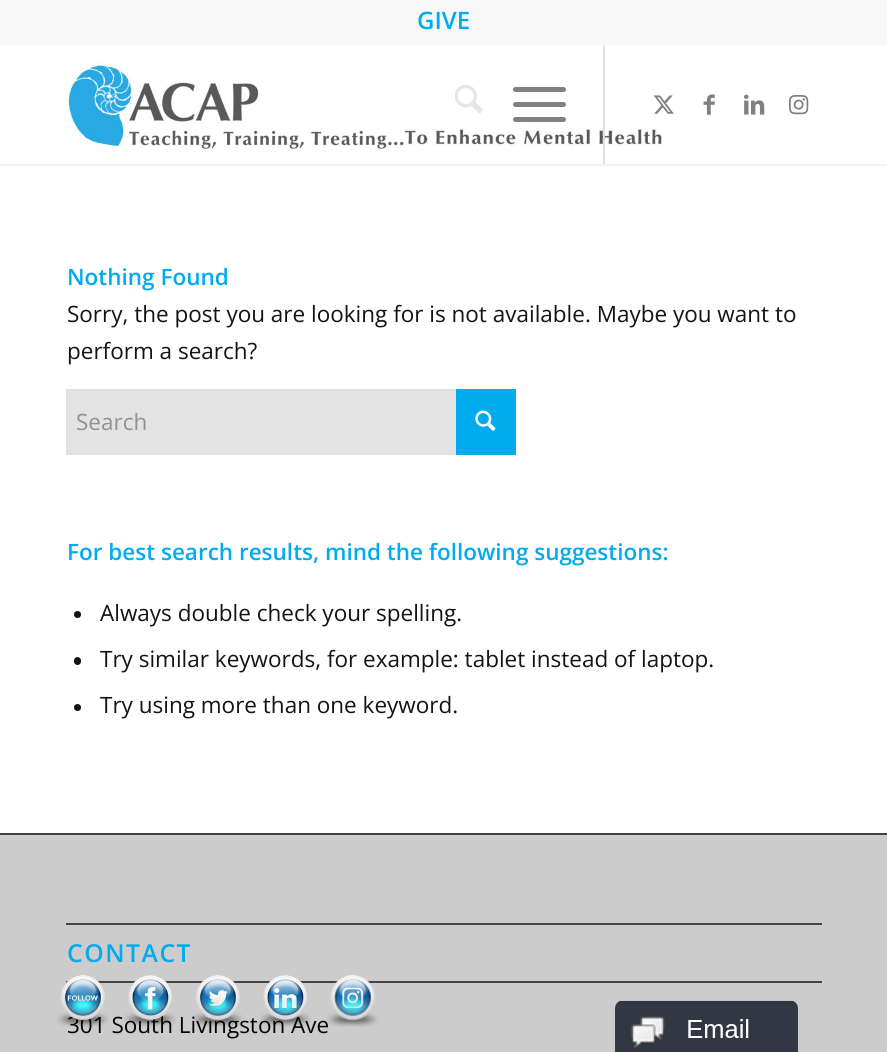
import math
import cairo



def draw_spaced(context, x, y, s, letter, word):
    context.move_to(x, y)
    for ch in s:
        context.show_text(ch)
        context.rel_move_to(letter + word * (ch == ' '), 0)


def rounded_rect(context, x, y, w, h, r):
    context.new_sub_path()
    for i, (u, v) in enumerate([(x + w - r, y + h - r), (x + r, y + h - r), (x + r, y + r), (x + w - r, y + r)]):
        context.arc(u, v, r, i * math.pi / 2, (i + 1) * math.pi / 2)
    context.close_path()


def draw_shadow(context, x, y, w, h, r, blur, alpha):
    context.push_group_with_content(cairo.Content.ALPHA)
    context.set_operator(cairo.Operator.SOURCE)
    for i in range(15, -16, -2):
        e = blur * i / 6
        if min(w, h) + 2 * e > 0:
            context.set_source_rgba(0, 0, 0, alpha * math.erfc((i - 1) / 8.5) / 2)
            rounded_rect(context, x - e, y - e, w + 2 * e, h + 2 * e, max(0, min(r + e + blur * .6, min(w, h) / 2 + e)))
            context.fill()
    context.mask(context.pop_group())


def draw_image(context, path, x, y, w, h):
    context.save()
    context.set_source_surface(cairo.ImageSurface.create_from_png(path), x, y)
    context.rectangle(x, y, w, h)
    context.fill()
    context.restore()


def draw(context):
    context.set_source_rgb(1, 1, 1)
    context.paint()
    context.set_source_rgb(0, 0, 0)
    draw_shadow(context, -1, -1, 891, 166, 0, 1.5, 0.1)
    context.set_source_rgb(1, 1, 1)
    context.rectangle(0, 45, 887, 119)
    context.fill()
    draw_image(context, "images/6.png", 66, 62, 596, 89)
    context.set_source_rgb(225 / 255, 225 / 255, 225 / 255)
    context.rectangle(603, 44, 2, 120)
    context.fill()
    context.set_source_rgb(248 / 255, 248 / 255, 248 / 255)
    context.rectangle(0, 0, 887, 45)
    context.fill()
    draw_image(context, "images/1.png", 455, 84, 28, 30)
    context.set_source_rgb(128 / 255, 128 / 255, 128 / 255)
    rounded_rect(context, 513, 102, 53, 5, 2.5)
    context.fill()
    rounded_rect(context, 513, 87, 53, 5, 2.5)
    context.fill()
    rounded_rect(context, 513, 117, 53, 5, 2.5)
    context.fill()
    draw_image(context, "images/2.png", 653, 95, 21, 19)
    draw_image(context, "images/3.png", 703, 94, 12, 21)
    draw_image(context, "images/4.png", 744, 94, 21, 21)
    draw_image(context, "images/5.png", 789, 95, 20, 20)
    context.set_source_rgb(227 / 255, 227 / 255, 227 / 255)
    context.rectangle(68, 391, 388, 62)
    context.fill()
    context.rectangle(67, 390, 448, 64)
    context.set_source_rgb(225 / 255, 225 / 255, 225 / 255)
    context.stroke()
    context.set_source_rgb(2 / 255, 171 / 255, 238 / 255)
    context.rectangle(456, 389, 60, 66)
    context.fill()
    draw_image(context, "images/7.png", 475, 410, 21, 21)
    context.set_source_rgb(20 / 255, 20 / 255, 20 / 255)
    context.arc(77.5, 614.5, 3.5, 0, 2 * math.pi)
    context.fill()
    rounded_rect(context, 74, 657, 7, 8, 3.5)
    context.fill()
    context.arc(77.5, 707.5, 3.5, 0, 2 * math.pi)
    context.fill()
    context.set_source_rgb(204 / 255, 204 / 255, 204 / 255)
    context.rectangle(0, 835, 887, 217)
    context.fill()
    context.set_source_rgb(68 / 255, 68 / 255, 68 / 255)
    context.rectangle(0, 833, 887, 2)
    context.fill()
    context.rectangle(66, 923, 756, 2)
    context.fill()
    context.rectangle(66, 981, 756, 2)
    context.fill()
    draw_image(context, "images/13.png", 615, 1000, 183, 52)
    context.select_font_face("Open Sans SemiBold")
    context.set_font_size(24)
    context.set_source_rgb(2 / 255, 171 / 255, 238 / 255)
    context.move_to(417, 29)
    context.show_text("GIVE")
    context.set_font_size(22.5)
    context.move_to(67, 285)
    context.show_text("Nothing Found")
    context.select_font_face("Open Sans")
    context.set_source_rgb(20 / 255, 20 / 255, 20 / 255)
    context.move_to(67, 322)
    context.show_text("Sorry, the post you are looking for is not available. Maybe you want to")
    context.move_to(67, 359)
    context.show_text("perform a search?")
    context.set_source_rgb(146 / 255, 145 / 255, 146 / 255)
    context.move_to(76, 430)
    context.show_text("Search")
    context.select_font_face("Open Sans SemiBold")
    context.set_source_rgb(2 / 255, 171 / 255, 238 / 255)
    context.move_to(67, 560)
    context.show_text("For best search results, mind the following suggestions:")
    context.select_font_face("Open Sans")
    context.set_source_rgb(20 / 255, 20 / 255, 20 / 255)
    context.move_to(100, 621)
    context.show_text("Always double check your spelling.")
    context.move_to(100, 667)
    context.show_text("Try similar keywords, for example: tablet instead of laptop.")
    context.move_to(100, 713)
    context.show_text("Try using more than one keyword.")
    context.select_font_face("Open Sans SemiBold")
    context.set_font_size(24.75)
    context.set_source_rgb(2 / 255, 171 / 255, 238 / 255)
    draw_spaced(context, 67, 962, "CONTACT", 1.5, 0)
    context.select_font_face("Open Sans")
    context.set_font_size(22.5)
    context.set_source_rgb(3 / 255, 3 / 255, 3 / 255)
    context.move_to(67, 1033)
    context.show_text("301 South Livingston Ave")
    draw_image(context, "images/8.png", 56, 975, 53, 52)
    draw_image(context, "images/9.png", 124, 975, 52, 52)
    draw_image(context, "images/10.png", 192, 975, 52, 52)
    draw_image(context, "images/11.png", 259, 975, 52, 52)
    draw_image(context, "images/12.png", 326, 975, 53, 52)


surface = cairo.ImageSurface(cairo.Format.RGB24, 887, 1052)
context = cairo.Context(surface)
options = cairo.FontOptions()
options.set_hint_metrics(cairo.HintMetrics.OFF)
options.set_hint_style(cairo.HintStyle.NONE)
context.set_font_options(options)
context.set_miter_limit(4)
draw(context)
surface.write_to_png("out.png")
